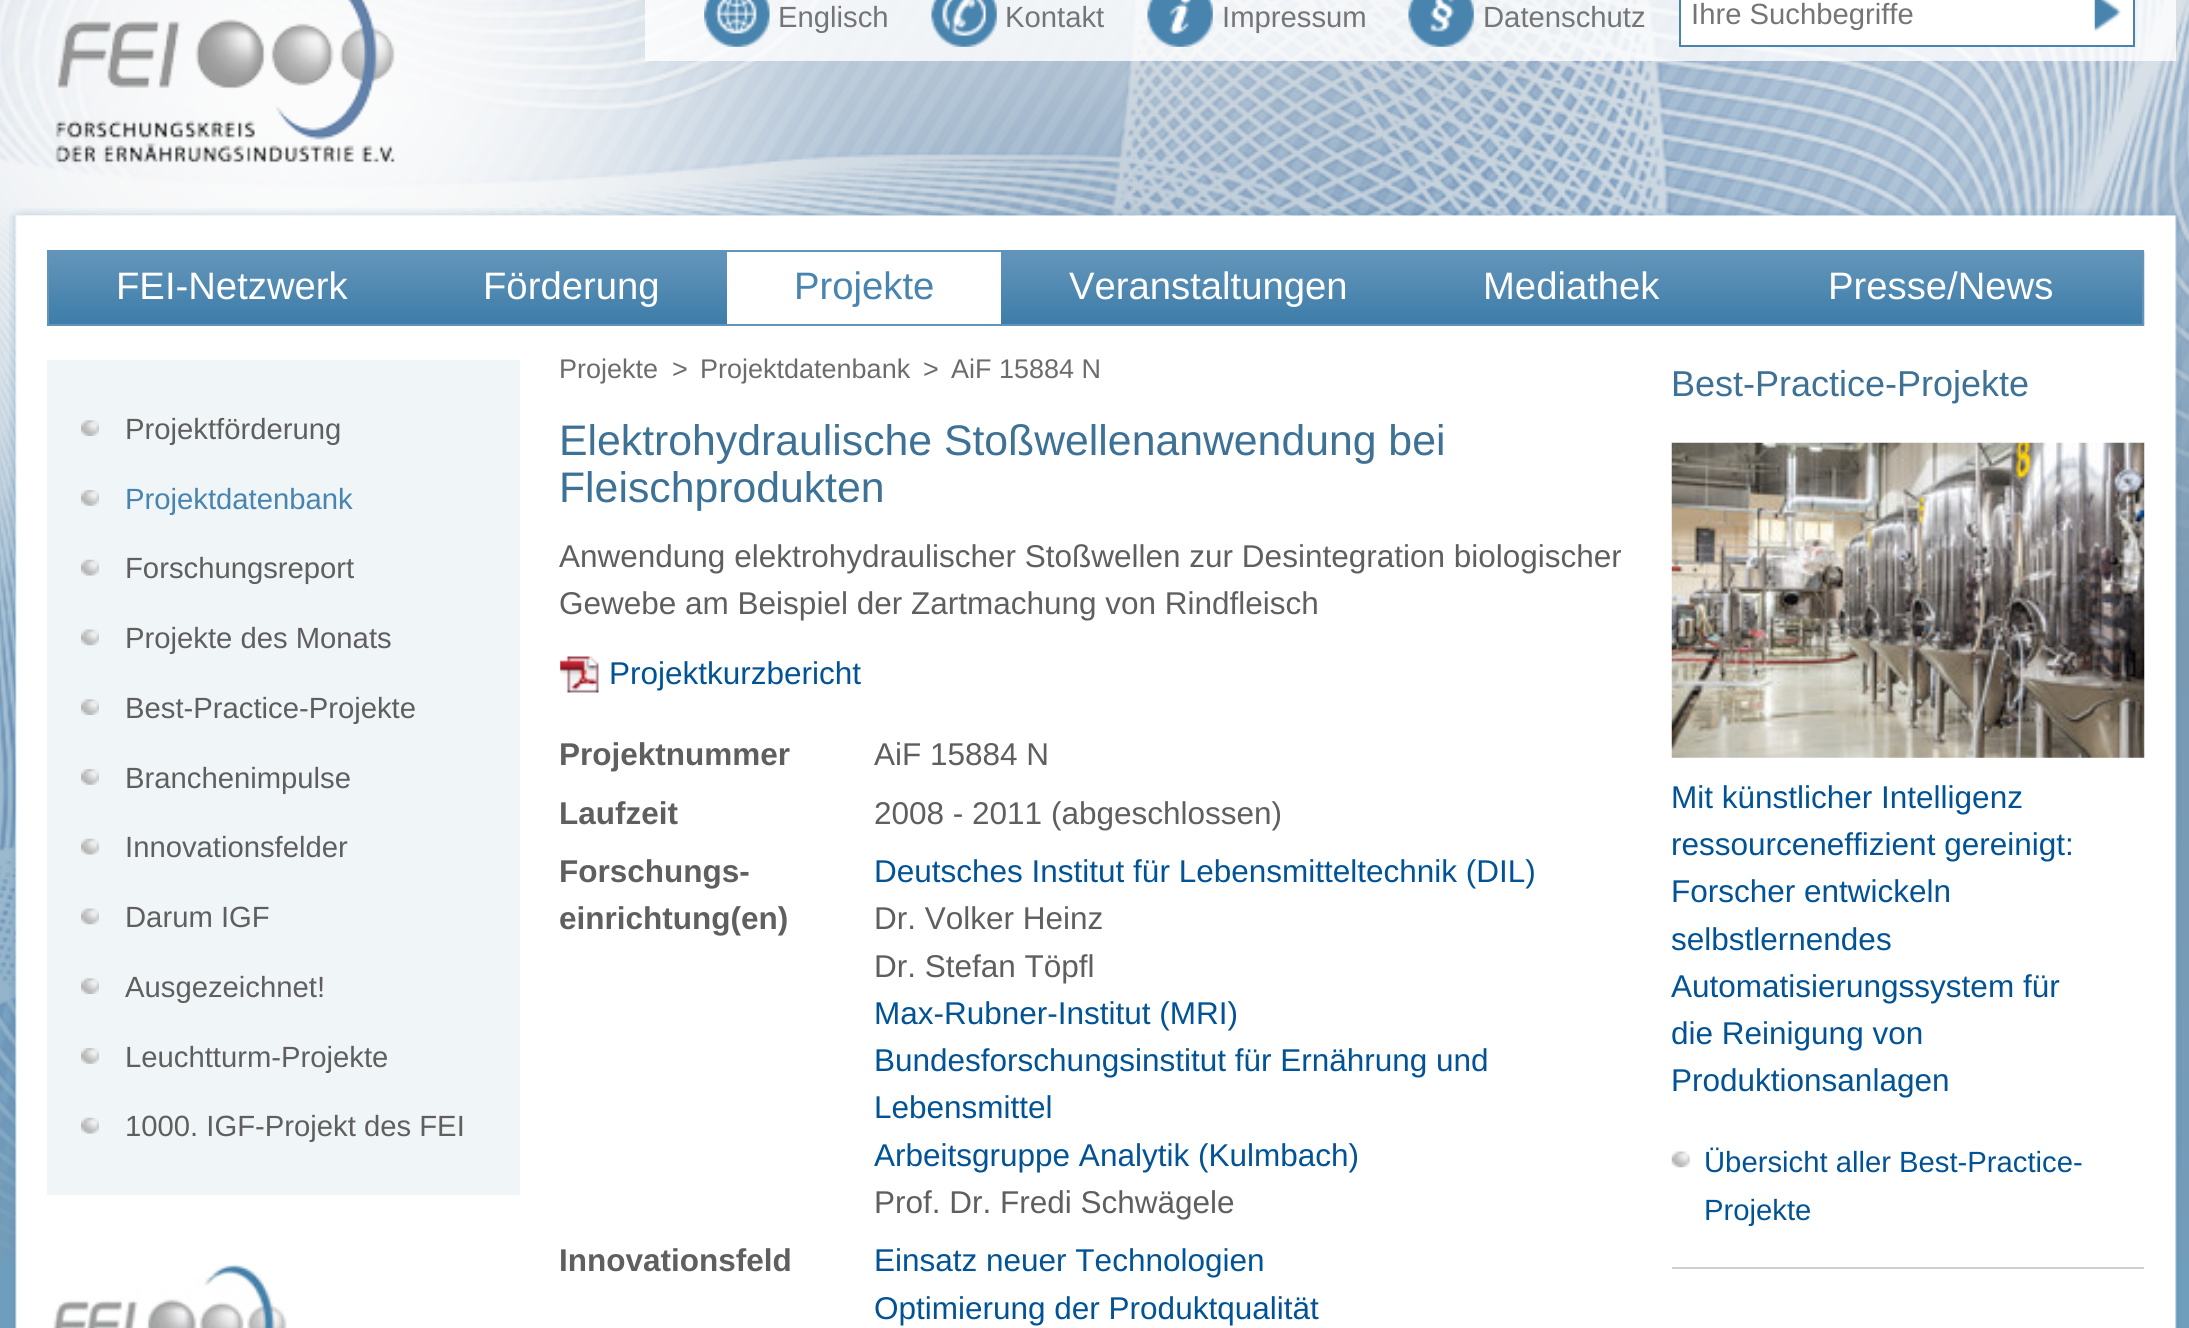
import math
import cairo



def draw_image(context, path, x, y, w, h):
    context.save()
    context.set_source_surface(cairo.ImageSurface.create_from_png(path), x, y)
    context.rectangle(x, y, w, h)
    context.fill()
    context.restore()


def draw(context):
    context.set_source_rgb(111 / 255, 158 / 255, 189 / 255)
    context.paint()
    draw_image(context, "images/1.png", 0, 0, 2189, 1259)
    draw_image(context, "images/2.png", 55, 0, 340, 163)
    context.set_source_rgba(1, 1, 1, 0.8)
    context.rectangle(645, 0, 1531, 61)
    context.fill()
    draw_image(context, "images/3.png", 704, 0, 66, 47)
    draw_image(context, "images/4.png", 931, 0, 66, 47)
    draw_image(context, "images/5.png", 1147, 0, 66, 47)
    draw_image(context, "images/6.png", 1408, 0, 66, 47)
    context.set_source_rgb(1, 1, 1)
    context.rectangle(1681, 0, 452, 45)
    context.fill()
    context.set_source_rgb(72 / 255, 132 / 255, 174 / 255)
    context.rectangle(1679, 45, 409, 2)
    context.fill()
    context.rectangle(1679, 0, 2, 47)
    context.fill()
    draw_image(context, "images/7.png", 2094, 0, 28, 32)
    context.rectangle(2133, 0, 2, 47)
    context.fill()
    context.rectangle(2088, 45, 47, 2)
    context.fill()
    draw_image(context, "images/8.png", 11, 208, 2170, 8)
    draw_image(context, "images/9.png", 9, 215, 2173, 1113)
    draw_image(context, "images/10.png", 49, 251, 2096, 75)
    context.rectangle(48, 251, 2095, 74)
    context.set_source_rgb(98 / 255, 148 / 255, 185 / 255)
    context.stroke()
    context.set_source_rgb(1, 1, 1)
    context.rectangle(727, 252, 274, 72)
    context.fill()
    context.set_source_rgb(240 / 255, 245 / 255, 248 / 255)
    context.rectangle(47, 360, 473, 835)
    context.fill()
    draw_image(context, "images/11.png", 81, 420, 18, 16)
    draw_image(context, "images/12.png", 81, 490, 18, 16)
    draw_image(context, "images/13.png", 81, 559, 18, 17)
    draw_image(context, "images/14.png", 81, 629, 18, 17)
    draw_image(context, "images/15.png", 81, 699, 18, 16)
    draw_image(context, "images/16.png", 81, 769, 18, 16)
    draw_image(context, "images/13.png", 81, 838, 18, 17)
    draw_image(context, "images/14.png", 81, 908, 18, 17)
    draw_image(context, "images/11.png", 81, 978, 18, 16)
    draw_image(context, "images/16.png", 81, 1048, 18, 16)
    draw_image(context, "images/13.png", 81, 1117, 18, 17)
    draw_image(context, "images/17.png", 53, 1264, 234, 64)
    draw_image(context, "images/18.png", 560, 656, 39, 37)
    context.set_source_rgb(206 / 255, 207 / 255, 207 / 255)
    context.rectangle(1672, 1267, 472, 2)
    context.fill()
    draw_image(context, "images/19.png", 1671, 442, 474, 316)
    draw_image(context, "images/20.png", 1671, 1151, 19, 17)
    context.select_font_face("Liberation Sans")
    context.set_font_size(29.25)
    context.set_source_rgb(115 / 255, 117 / 255, 118 / 255)
    context.move_to(778, 27)
    context.show_text("Englisch")
    context.move_to(1005, 27)
    context.show_text("Kontakt")
    context.move_to(1222, 27)
    context.show_text("Impressum")
    context.move_to(1483, 27)
    context.show_text("Datenschutz")
    context.move_to(1691, 24)
    context.show_text("Ihre Suchbegriffe")
    context.set_font_size(38.25)
    context.set_source_rgb(1, 1, 1)
    context.move_to(116, 299)
    context.show_text("FEI-Netzwerk")
    context.move_to(483, 299)
    context.show_text("Förderung")
    context.set_source_rgb(72 / 255, 132 / 255, 174 / 255)
    context.move_to(794, 299)
    context.show_text("Projekte")
    context.set_source_rgb(1, 1, 1)
    context.move_to(1069, 299)
    context.show_text("Veranstaltungen")
    context.move_to(1483, 299)
    context.show_text("Mediathek")
    context.move_to(1828, 299)
    context.show_text("Presse/News")
    context.set_font_size(29.25)
    context.set_source_rgb(95 / 255, 95 / 255, 95 / 255)
    context.move_to(125, 439)
    context.show_text("Projektförderung")
    context.set_source_rgb(72 / 255, 132 / 255, 174 / 255)
    context.move_to(125, 509)
    context.show_text("Projektdatenbank")
    context.set_source_rgb(95 / 255, 95 / 255, 95 / 255)
    context.move_to(125, 578)
    context.show_text("Forschungsreport")
    context.move_to(125, 648)
    context.show_text("Projekte des Monats")
    context.move_to(125, 718)
    context.show_text("Best-Practice-Projekte")
    context.move_to(125, 788)
    context.show_text("Branchenimpulse")
    context.move_to(125, 857)
    context.show_text("Innovationsfelder")
    context.move_to(125, 927)
    context.show_text("Darum IGF")
    context.move_to(125, 997)
    context.show_text("Ausgezeichnet!")
    context.move_to(125, 1067)
    context.show_text("Leuchtturm-Projekte")
    context.move_to(125, 1136)
    context.show_text("1000. IGF-Projekt des FEI")
    context.set_font_size(27)
    context.set_source_rgb(108 / 255, 108 / 255, 108 / 255)
    context.move_to(559, 378)
    context.show_text("Projekte")
    context.move_to(672, 378)
    context.show_text(">")
    context.move_to(700, 378)
    context.show_text("Projektdatenbank")
    context.move_to(923, 378)
    context.show_text(">")
    context.move_to(951, 378)
    context.show_text("AiF 15884 N")
    context.set_font_size(42.75)
    context.set_source_rgb(61 / 255, 113 / 255, 149 / 255)
    context.move_to(559, 455)
    context.show_text("Elektrohydraulische Stoßwellenanwendung bei")
    context.move_to(559, 502)
    context.show_text("Fleischprodukten")
    context.set_font_size(31.5)
    context.set_source_rgb(95 / 255, 95 / 255, 95 / 255)
    context.move_to(559, 567)
    context.show_text("Anwendung elektrohydraulischer Stoßwellen zur Desintegration biologischer")
    context.move_to(559, 614)
    context.show_text("Gewebe am Beispiel der Zartmachung von Rindfleisch")
    context.set_source_rgb(1 / 255, 83 / 255, 149 / 255)
    context.move_to(609, 684)
    context.show_text("Projektkurzbericht")
    context.select_font_face("Liberation Sans", cairo.FontSlant.NORMAL, cairo.FontWeight.BOLD)
    context.set_source_rgb(95 / 255, 95 / 255, 95 / 255)
    context.move_to(559, 765)
    context.show_text("Projektnummer")
    context.select_font_face("Liberation Sans")
    context.move_to(874, 765)
    context.show_text("AiF 15884 N")
    context.select_font_face("Liberation Sans", cairo.FontSlant.NORMAL, cairo.FontWeight.BOLD)
    context.move_to(559, 824)
    context.show_text("Laufzeit")
    context.select_font_face("Liberation Sans")
    context.move_to(874, 824)
    context.show_text("2008 - 2011 (abgeschlossen)")
    context.select_font_face("Liberation Sans", cairo.FontSlant.NORMAL, cairo.FontWeight.BOLD)
    context.move_to(559, 882)
    context.show_text("Forschungs-")
    context.move_to(559, 929)
    context.show_text("einrichtung(en)")
    context.select_font_face("Liberation Sans")
    context.set_source_rgb(1 / 255, 83 / 255, 149 / 255)
    context.move_to(874, 882)
    context.show_text("Deutsches Institut für Lebensmitteltechnik (DIL)")
    context.set_source_rgb(95 / 255, 95 / 255, 95 / 255)
    context.move_to(874, 929)
    context.show_text("Dr. Volker Heinz")
    context.move_to(874, 977)
    context.show_text("Dr. Stefan Töpfl")
    context.set_source_rgb(1 / 255, 83 / 255, 149 / 255)
    context.move_to(874, 1024)
    context.show_text("Max-Rubner-Institut (MRI)")
    context.move_to(874, 1071)
    context.show_text("Bundesforschungsinstitut für Ernährung und")
    context.move_to(874, 1118)
    context.show_text("Lebensmittel")
    context.move_to(874, 1166)
    context.show_text("Arbeitsgruppe Analytik (Kulmbach)")
    context.set_source_rgb(95 / 255, 95 / 255, 95 / 255)
    context.move_to(874, 1213)
    context.show_text("Prof. Dr. Fredi Schwägele")
    context.select_font_face("Liberation Sans", cairo.FontSlant.NORMAL, cairo.FontWeight.BOLD)
    context.move_to(559, 1271)
    context.show_text("Innovationsfeld")
    context.select_font_face("Liberation Sans")
    context.set_source_rgb(1 / 255, 83 / 255, 149 / 255)
    context.move_to(874, 1271)
    context.show_text("Einsatz neuer Technologien")
    context.move_to(874, 1319)
    context.show_text("Optimierung der Produktqualität")
    context.set_font_size(36)
    context.set_source_rgb(61 / 255, 113 / 255, 149 / 255)
    context.move_to(1671, 396)
    context.show_text("Best-Practice-Projekte")
    context.set_font_size(31.5)
    context.set_source_rgb(1 / 255, 83 / 255, 149 / 255)
    context.move_to(1671, 808)
    context.show_text("Mit künstlicher Intelligenz")
    context.move_to(1671, 855)
    context.show_text("ressourceneffizient gereinigt:")
    context.move_to(1671, 902)
    context.show_text("Forscher entwickeln")
    context.move_to(1671, 950)
    context.show_text("selbstlernendes")
    context.move_to(1671, 997)
    context.show_text("Automatisierungssystem für")
    context.move_to(1671, 1044)
    context.show_text("die Reinigung von")
    context.move_to(1671, 1091)
    context.show_text("Produktionsanlagen")
    context.set_font_size(29.25)
    context.move_to(1704, 1172)
    context.show_text("Übersicht aller Best-Practice-")
    context.move_to(1704, 1220)
    context.show_text("Projekte")


surface = cairo.ImageSurface(cairo.Format.RGB24, 2189, 1328)
context = cairo.Context(surface)
options = cairo.FontOptions()
options.set_hint_metrics(cairo.HintMetrics.OFF)
options.set_hint_style(cairo.HintStyle.NONE)
context.set_font_options(options)
context.set_miter_limit(4)
draw(context)
surface.write_to_png("out.png")
